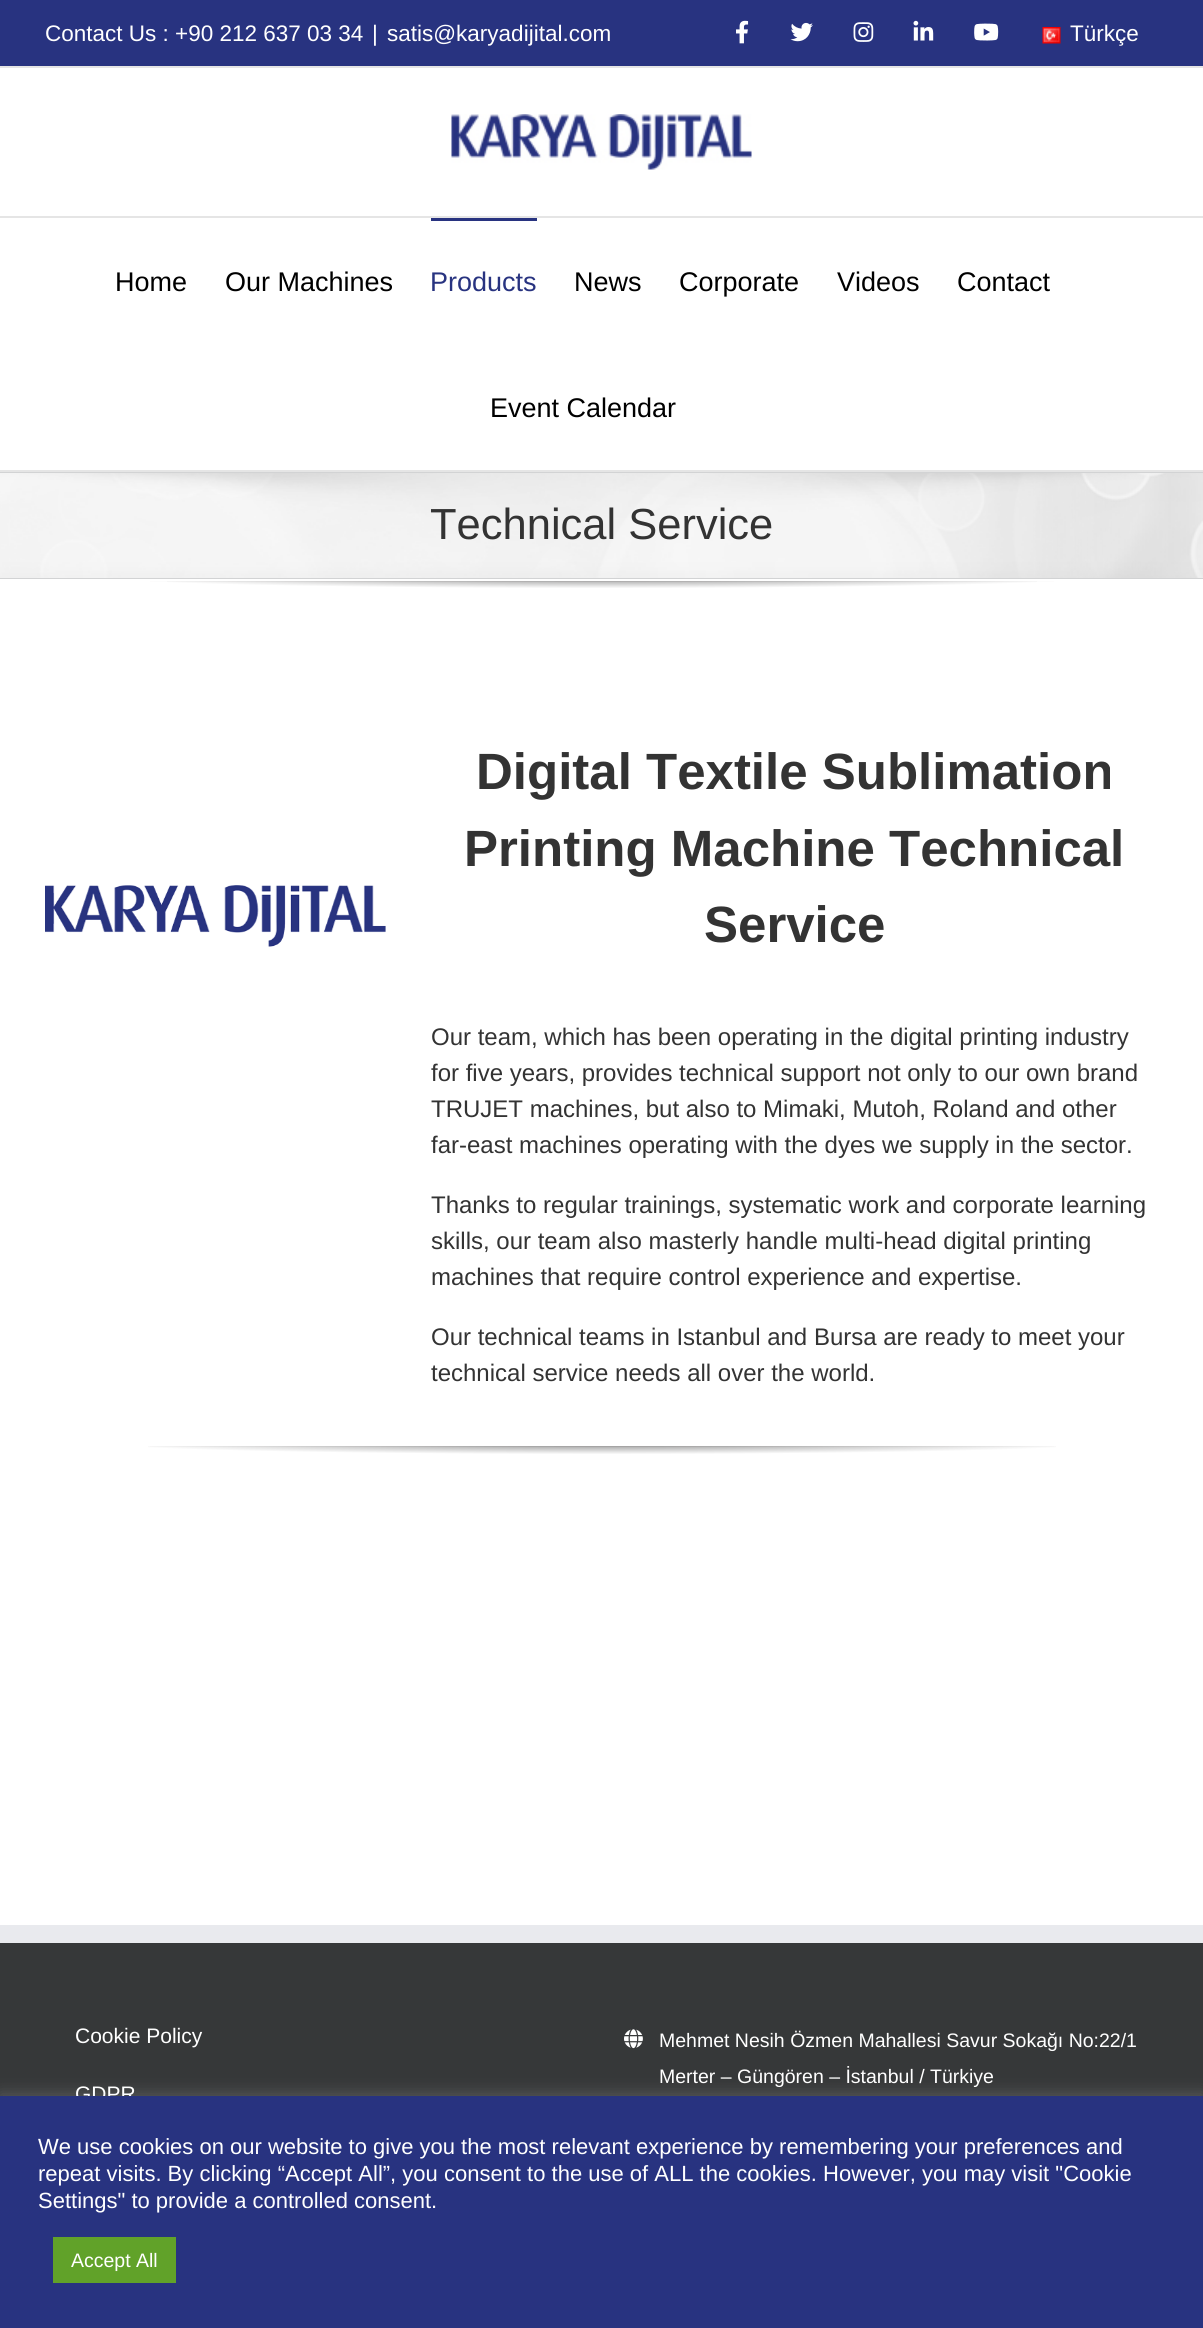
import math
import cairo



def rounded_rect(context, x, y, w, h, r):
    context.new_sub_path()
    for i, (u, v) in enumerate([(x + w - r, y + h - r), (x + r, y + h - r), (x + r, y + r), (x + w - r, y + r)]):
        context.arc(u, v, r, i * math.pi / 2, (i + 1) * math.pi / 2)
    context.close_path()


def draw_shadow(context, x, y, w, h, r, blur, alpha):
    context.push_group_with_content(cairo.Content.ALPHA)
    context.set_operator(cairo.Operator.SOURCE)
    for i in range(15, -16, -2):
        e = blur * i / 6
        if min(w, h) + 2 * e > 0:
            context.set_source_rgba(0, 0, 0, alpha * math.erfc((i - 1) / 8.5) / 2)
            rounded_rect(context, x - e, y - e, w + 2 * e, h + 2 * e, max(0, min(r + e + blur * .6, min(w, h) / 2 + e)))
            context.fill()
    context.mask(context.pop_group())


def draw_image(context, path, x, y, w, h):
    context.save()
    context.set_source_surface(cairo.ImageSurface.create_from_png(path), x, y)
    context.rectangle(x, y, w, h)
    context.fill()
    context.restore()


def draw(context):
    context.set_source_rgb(1, 1, 1)
    context.paint()
    context.set_source_rgb(40 / 255, 51 / 255, 128 / 255)
    context.rectangle(0, 0, 1203, 66)
    context.fill()
    context.set_source_rgb(229 / 255, 229 / 255, 229 / 255)
    context.rectangle(0, 66, 1203, 2)
    context.fill()
    draw_image(context, "images/1.png", 736, 20, 13, 24)
    draw_image(context, "images/2.png", 790, 22, 23, 20)
    draw_image(context, "images/3.png", 853, 22, 21, 20)
    draw_image(context, "images/4.png", 913, 20, 21, 21)
    draw_image(context, "images/5.png", 974, 23, 25, 18)
    draw_image(context, "images/6.png", 1042, 27, 19, 17)
    context.rectangle(0, 216, 1203, 2)
    context.fill()
    draw_image(context, "images/7.png", 451, 114, 301, 56)
    context.rectangle(0, 470, 1203, 2)
    context.fill()
    context.set_source_rgb(40 / 255, 51 / 255, 128 / 255)
    context.rectangle(431, 218, 106, 3)
    context.fill()
    context.set_source_rgb(246 / 255, 246 / 255, 246 / 255)
    context.rectangle(0, 473, 1203, 105)
    context.fill()
    draw_image(context, "images/8.png", 0, 473, 1203, 105)
    context.set_source_rgb(210 / 255, 211 / 255, 212 / 255)
    context.rectangle(0, 472, 1203, 1)
    context.fill()
    context.rectangle(0, 578, 1203, 1)
    context.fill()
    gradient = cairo.RadialGradient(0, 0, 0, 0, 0, 1)
    gradient.set_matrix(cairo.Matrix(1 / 787, 0, 0, 1 / 3.2, -1 * 602 / 787, -1 * 580 / 3.2))
    gradient.add_color_stop_rgba(0, 224 / 255, 222 / 255, 222 / 255, 1)
    gradient.add_color_stop_rgba(0.8, 1, 1, 1, 1)
    context.set_source(gradient)
    context.rectangle(150, 581, 904, 1)
    context.fill()
    gradient = cairo.RadialGradient(0, 0, 0, 0, 0, 1)
    gradient.set_matrix(cairo.Matrix(1 / 787, 0, 0, 1 / 19, -1 * 602 / 787, -1 * 576 / 19))
    gradient.add_color_stop_rgba(0, 0, 0, 0, 0.5)
    gradient.add_color_stop_rgba(0.65, 0, 0, 0, 0)
    context.set_source(gradient)
    context.rectangle(167, 581, 870, 7)
    context.fill()
    draw_image(context, "images/9.png", 45, 885, 341, 62)
    gradient = cairo.RadialGradient(0, 0, 0, 0, 0, 1)
    gradient.set_matrix(cairo.Matrix(1 / 787, 0, 0, 1 / 3.2, -1 * 602 / 787, -1 * 1445 / 3.2))
    gradient.add_color_stop_rgba(0, 224 / 255, 222 / 255, 222 / 255, 1)
    gradient.add_color_stop_rgba(0.8, 1, 1, 1, 1)
    context.set_source(gradient)
    context.rectangle(150, 1446, 904, 1)
    context.fill()
    gradient = cairo.RadialGradient(0, 0, 0, 0, 0, 1)
    gradient.set_matrix(cairo.Matrix(1 / 787, 0, 0, 1 / 19, -1 * 602 / 787, -1 * 1442 / 19))
    gradient.add_color_stop_rgba(0, 0, 0, 0, 0.5)
    gradient.add_color_stop_rgba(0.65, 0, 0, 0, 0)
    context.set_source(gradient)
    context.rectangle(148, 1446, 908, 8)
    context.fill()
    context.set_source_rgb(54 / 255, 56 / 255, 57 / 255)
    context.rectangle(0, 1943, 1203, 153)
    context.fill()
    context.set_source_rgb(233 / 255, 234 / 255, 238 / 255)
    context.rectangle(0, 1925, 1203, 18)
    context.fill()
    draw_image(context, "images/10.png", 624, 2029, 19, 20)
    context.set_source_rgb(172 / 255, 171 / 255, 171 / 255)
    draw_shadow(context, 0, 2094, 1203, 233, 0, 7.5, 0.3)
    context.select_font_face("Liberation Sans")
    context.set_font_size(22.5)
    context.set_source_rgb(1, 1, 1)
    context.move_to(45, 41)
    context.show_text("Contact Us : +90 212 637 03 34")
    context.move_to(372, 41)
    context.show_text("|")
    context.move_to(387, 41)
    context.show_text("satis@karyadijital.com")
    context.move_to(1070, 41)
    context.show_text("Türkçe")
    context.set_font_size(27)
    context.set_source_rgb(0, 0, 0)
    context.move_to(115, 291)
    context.show_text("Home")
    context.move_to(225, 291)
    context.show_text("Our Machines")
    context.set_source_rgb(40 / 255, 51 / 255, 128 / 255)
    context.move_to(430, 291)
    context.show_text("Products")
    context.set_source_rgb(0, 0, 0)
    context.move_to(574, 291)
    context.show_text("News")
    context.move_to(679, 291)
    context.show_text("Corporate")
    context.move_to(837, 291)
    context.show_text("Videos")
    context.move_to(957, 291)
    context.show_text("Contact")
    context.move_to(490, 417)
    context.show_text("Event Calendar")
    context.set_font_size(43.5)
    context.set_source_rgb(51 / 255, 51 / 255, 51 / 255)
    context.move_to(430, 539)
    context.show_text("Technical Service")
    context.select_font_face("Liberation Sans", cairo.FontSlant.NORMAL, cairo.FontWeight.BOLD)
    context.set_font_size(51)
    context.move_to(476, 789)
    context.show_text("Digital Textile Sublimation")
    context.move_to(464, 866)
    context.show_text("Printing Machine Technical")
    context.move_to(704, 942)
    context.show_text("Service")
    context.select_font_face("Liberation Sans")
    context.set_font_size(24)
    context.move_to(431, 1045)
    context.show_text("Our team, which has been operating in the digital printing industry")
    context.move_to(431, 1081)
    context.show_text("for five years, provides technical support not only to our own brand")
    context.move_to(431, 1117)
    context.show_text("TRUJET machines, but also to Mimaki, Mutoh, Roland and other")
    context.move_to(431, 1153)
    context.show_text("far-east machines operating with the dyes we supply in the sector.")
    context.move_to(431, 1213)
    context.show_text("Thanks to regular trainings, systematic work and corporate learning")
    context.move_to(431, 1249)
    context.show_text("skills, our team also masterly handle multi-head digital printing")
    context.move_to(431, 1285)
    context.show_text("machines that require control experience and expertise.")
    context.move_to(431, 1345)
    context.show_text("Our technical teams in Istanbul and Bursa are ready to meet your")
    context.move_to(431, 1381)
    context.show_text("technical service needs all over the world.")
    context.set_font_size(21)
    context.set_source_rgb(1, 1, 1)
    context.move_to(75, 2043)
    context.show_text("Cookie Policy")
    context.move_to(75, 2101)
    context.show_text("GDPR")
    context.set_font_size(19.5)
    context.move_to(659, 2047)
    context.show_text("Mehmet Nesih Özmen Mahallesi Savur Sokağı No:22/1")
    context.move_to(659, 2083)
    context.show_text("Merter – Güngören – İstanbul / Türkiye")
    context.set_source_rgb(40 / 255, 51 / 255, 128 / 255)
    context.rectangle(0, 2096, 1203, 232)
    context.fill()
    context.set_font_size(22)
    context.set_source_rgb(1, 1, 1)
    context.move_to(38, 2154)
    context.show_text("We use cookies on our website to give you the most relevant experience by remembering your preferences and")
    context.move_to(38, 2181)
    context.show_text("repeat visits. By clicking “Accept All”, you consent to the use of ALL the cookies. However, you may visit \"Cookie")
    context.move_to(38, 2208)
    context.show_text("Settings\" to provide a controlled consent.")
    context.set_source_rgb(97 / 255, 162 / 255, 41 / 255)
    context.rectangle(53, 2237, 123, 46)
    context.fill()
    context.set_font_size(19.5)
    context.set_source_rgb(1, 1, 1)
    context.move_to(71, 2267)
    context.show_text("Accept All")


surface = cairo.ImageSurface(cairo.Format.RGB24, 1203, 2328)
context = cairo.Context(surface)
options = cairo.FontOptions()
options.set_hint_metrics(cairo.HintMetrics.OFF)
options.set_hint_style(cairo.HintStyle.NONE)
context.set_font_options(options)
context.set_miter_limit(4)
draw(context)
surface.write_to_png("out.png")
